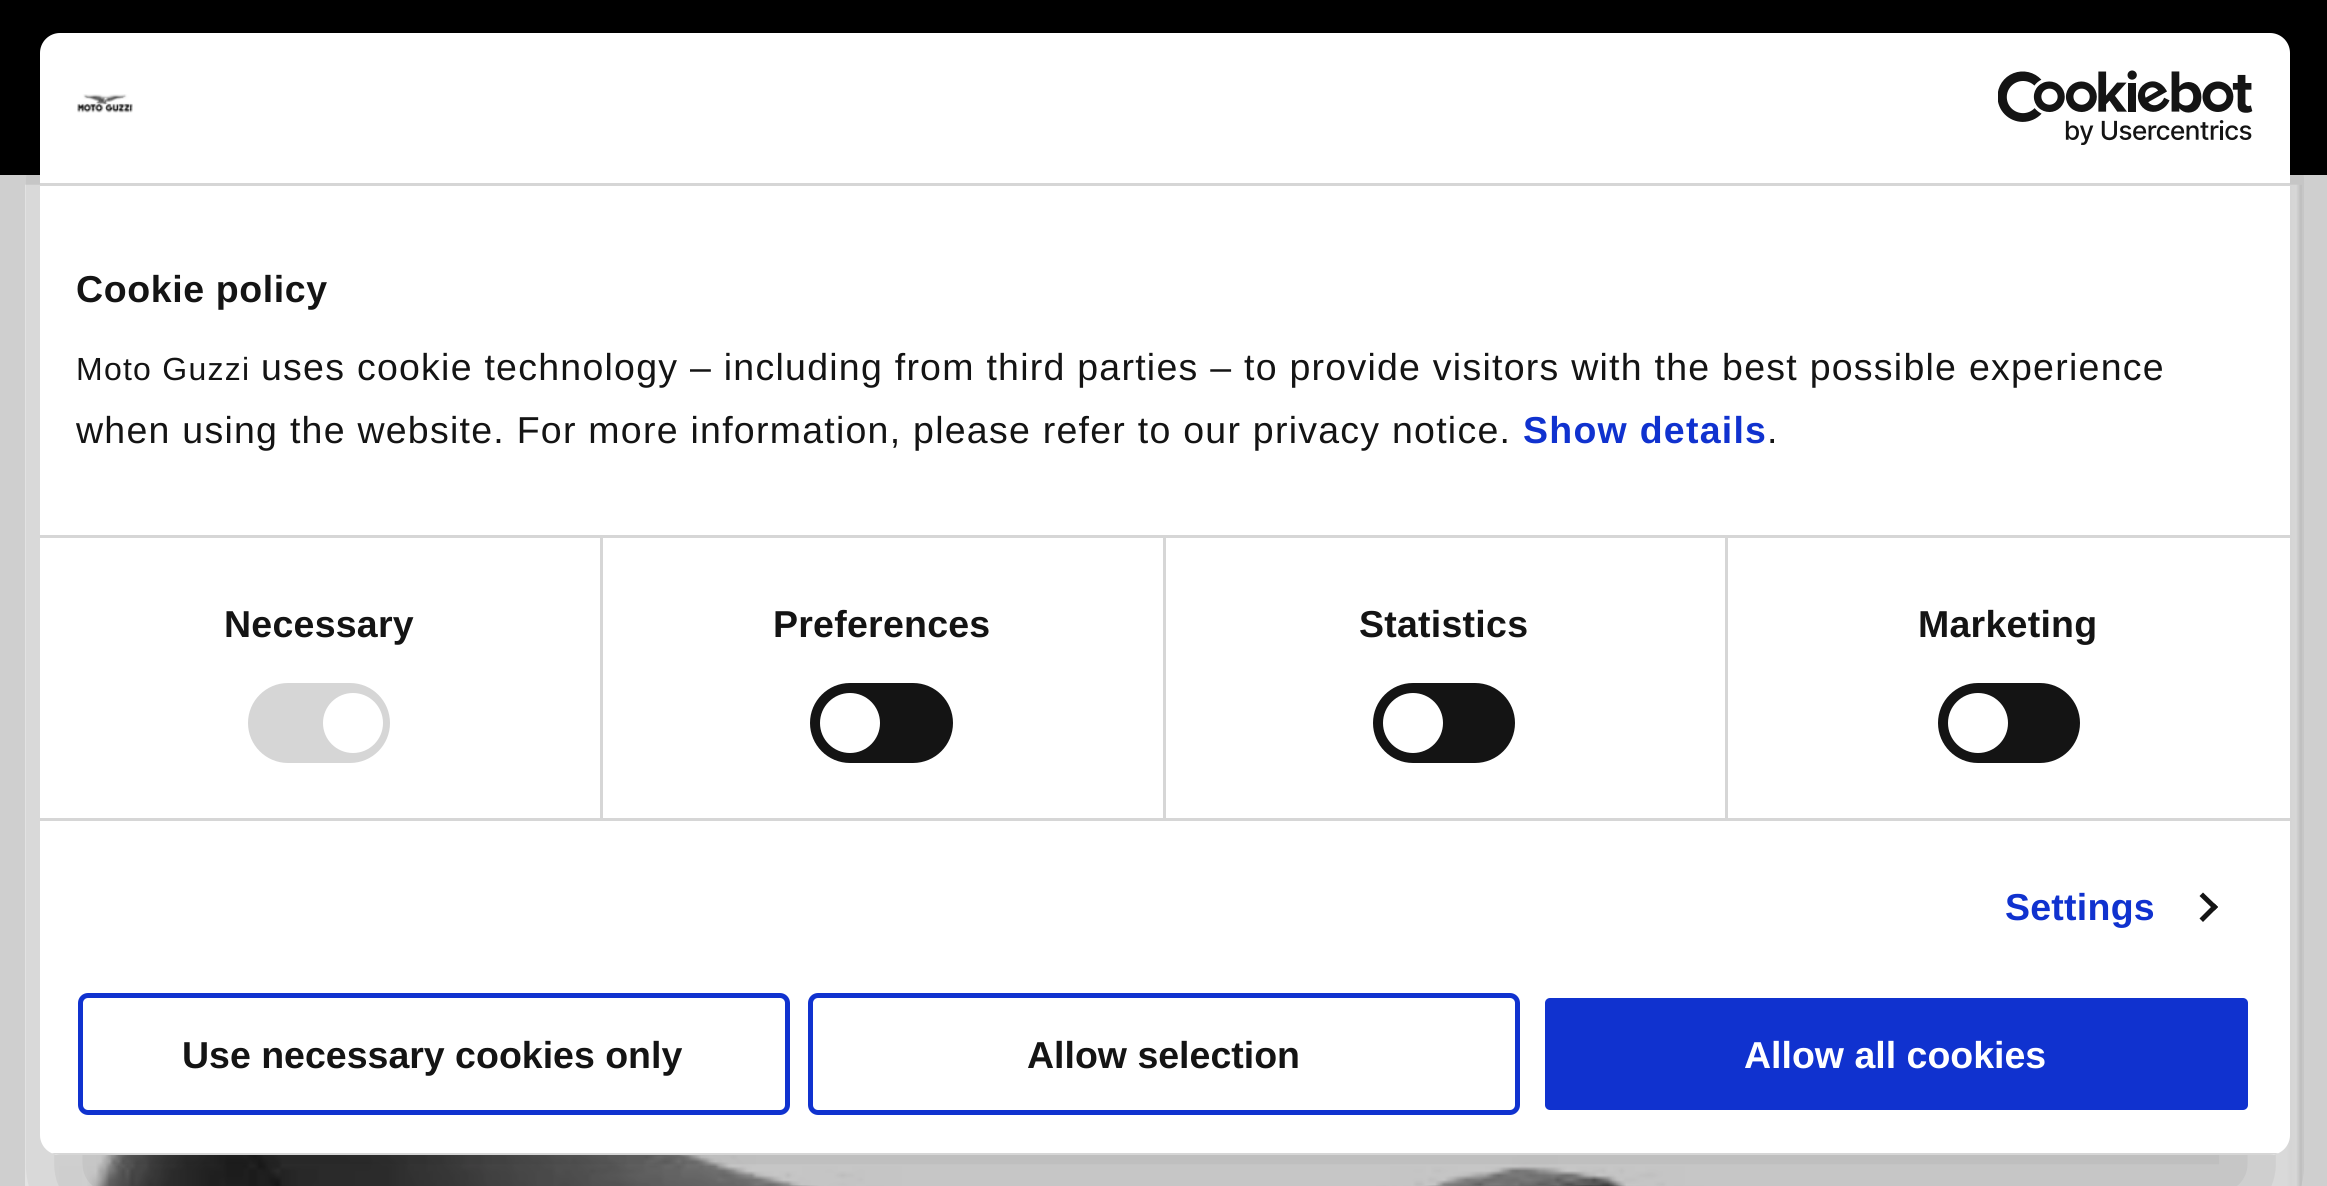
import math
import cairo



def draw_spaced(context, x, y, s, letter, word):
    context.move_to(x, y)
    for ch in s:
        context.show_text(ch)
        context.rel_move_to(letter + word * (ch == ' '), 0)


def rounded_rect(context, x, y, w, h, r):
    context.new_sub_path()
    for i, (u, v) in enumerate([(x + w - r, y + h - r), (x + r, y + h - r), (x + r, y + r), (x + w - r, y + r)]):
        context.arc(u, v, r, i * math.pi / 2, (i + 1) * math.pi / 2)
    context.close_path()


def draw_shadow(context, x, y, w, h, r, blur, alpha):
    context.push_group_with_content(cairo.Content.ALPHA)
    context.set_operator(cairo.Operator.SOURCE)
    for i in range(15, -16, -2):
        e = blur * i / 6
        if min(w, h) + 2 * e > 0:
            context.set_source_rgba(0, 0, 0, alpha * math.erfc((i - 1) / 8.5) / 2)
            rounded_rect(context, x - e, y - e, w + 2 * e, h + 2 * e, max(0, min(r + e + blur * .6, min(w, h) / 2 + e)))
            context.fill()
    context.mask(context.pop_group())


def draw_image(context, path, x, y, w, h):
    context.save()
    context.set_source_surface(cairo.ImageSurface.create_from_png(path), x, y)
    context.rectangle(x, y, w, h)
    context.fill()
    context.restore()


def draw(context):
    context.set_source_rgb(233 / 255, 233 / 255, 233 / 255)
    context.paint()
    context.set_source_rgb(0, 0, 0)
    context.rectangle(0, 0, 2327, 175)
    context.fill()
    draw_image(context, "images/1.png", 25, 184, 2277, 1002)
    context.set_source_rgb(0, 0, 0)
    draw_shadow(context, 40, 113, 2250, 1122, 20, 85, 0.3)
    context.set_source_rgb(1, 1, 1)
    rounded_rect(context, 40, 33, 2250, 1122, 20)
    context.fill()
    context.set_source_rgb(214 / 255, 214 / 255, 214 / 255)
    context.rectangle(40, 183, 2250, 3)
    context.fill()
    draw_image(context, "images/2.png", 77, 94, 56, 19)
    draw_image(context, "images/3.png", 1998, 70, 255, 75)
    context.rectangle(40, 535, 2250, 3)
    context.fill()
    context.rectangle(40, 818, 2250, 3)
    context.fill()
    context.rectangle(600, 538, 3, 280)
    context.fill()
    rounded_rect(context, 248, 683, 142, 80, 40)
    context.fill()
    context.set_source_rgb(1, 1, 1)
    context.arc(353, 723, 30, 0, 2 * math.pi)
    context.fill()
    context.set_source_rgb(214 / 255, 214 / 255, 214 / 255)
    context.rectangle(1163, 538, 3, 280)
    context.fill()
    context.set_source_rgb(20 / 255, 20 / 255, 20 / 255)
    rounded_rect(context, 810, 683, 143, 80, 40)
    context.fill()
    context.set_source_rgb(1, 1, 1)
    context.arc(850, 723, 30, 0, 2 * math.pi)
    context.fill()
    context.set_source_rgb(214 / 255, 214 / 255, 214 / 255)
    context.rectangle(1725, 538, 3, 280)
    context.fill()
    context.set_source_rgb(20 / 255, 20 / 255, 20 / 255)
    rounded_rect(context, 1373, 683, 142, 80, 40)
    context.fill()
    context.set_source_rgb(1, 1, 1)
    context.arc(1413, 723, 30, 0, 2 * math.pi)
    context.fill()
    context.set_source_rgb(20 / 255, 20 / 255, 20 / 255)
    rounded_rect(context, 1938, 683, 142, 80, 40)
    context.fill()
    context.set_source_rgb(1, 1, 1)
    context.arc(1978, 723, 30, 0, 2 * math.pi)
    context.fill()
    context.set_source_rgb(20 / 255, 20 / 255, 20 / 255)
    context.new_path()
    context.move_to(2203, 892.5)
    context.line_to(2218, 907)
    context.line_to(2214.5, 910.5)
    context.line_to(2199.5, 896)
    context.close_path()
    context.fill()
    context.new_path()
    context.move_to(2214.5, 903.5)
    context.line_to(2218, 907)
    context.line_to(2203, 922)
    context.line_to(2199.5, 918.5)
    context.close_path()
    context.fill()
    context.save()
    rounded_rect(context, 40, 33, 2250, 1122, 20)
    context.clip()
    context.set_source_rgb(214 / 255, 214 / 255, 214 / 255)
    context.rectangle(51, 1153, 2228, 2)
    context.fill()
    context.restore()
    rounded_rect(context, 80.5, 995.5, 707, 117, 7.5)
    context.set_source_rgb(16 / 255, 50 / 255, 207 / 255)
    context.set_line_width(5)
    context.stroke()
    rounded_rect(context, 810.5, 995.5, 707, 117, 7.5)
    context.stroke()
    rounded_rect(context, 1542.5, 995.5, 708, 117, 7.5)
    context.fill_preserve()
    context.set_source_rgb(1, 1, 1)
    context.stroke()
    context.select_font_face("Liberation Sans", cairo.FontSlant.NORMAL, cairo.FontWeight.BOLD)
    context.set_font_size(37.5)
    context.set_source_rgb(20 / 255, 20 / 255, 20 / 255)
    draw_spaced(context, 76, 302, "Cookie policy", 0.6, 0)
    context.select_font_face("Liberation Sans")
    context.set_font_size(32)
    draw_spaced(context, 76, 380, "Moto Guzzi", 1.25, 0)
    context.set_font_size(37.5)
    draw_spaced(context, 261, 380, "uses cookie technology – including from third parties – to provide visitors with the best possible experience", 1.25, 0)
    draw_spaced(context, 76, 443, "when using the website. For more information, please refer to our privacy notice.", 1.25, 0)
    context.select_font_face("Liberation Sans", cairo.FontSlant.NORMAL, cairo.FontWeight.BOLD)
    context.set_source_rgb(16 / 255, 50 / 255, 207 / 255)
    draw_spaced(context, 1523, 443, "Show details", 1.25, 0)
    context.select_font_face("Liberation Sans")
    context.set_source_rgb(20 / 255, 20 / 255, 20 / 255)
    draw_spaced(context, 1767, 443, ".", 1.25, 0)
    context.select_font_face("Liberation Sans", cairo.FontSlant.NORMAL, cairo.FontWeight.BOLD)
    draw_spaced(context, 224, 637, "Necessary", 0.25, 0)
    draw_spaced(context, 773, 637, "Preferences", 0.25, 0)
    draw_spaced(context, 1359, 637, "Statistics", 0.25, 0)
    draw_spaced(context, 1918, 637, "Marketing", 0.25, 0)
    context.set_source_rgb(16 / 255, 50 / 255, 207 / 255)
    draw_spaced(context, 2005, 920, "Settings", 0.25, 0)
    context.set_source_rgb(20 / 255, 20 / 255, 20 / 255)
    context.move_to(182, 1068)
    context.show_text("Use necessary cookies only")
    context.move_to(1027, 1068)
    context.show_text("Allow selection")
    context.set_source_rgb(1, 1, 1)
    context.move_to(1744, 1068)
    context.show_text("Allow all cookies")


surface = cairo.ImageSurface(cairo.Format.RGB24, 2327, 1186)
context = cairo.Context(surface)
options = cairo.FontOptions()
options.set_hint_metrics(cairo.HintMetrics.OFF)
options.set_hint_style(cairo.HintStyle.NONE)
context.set_font_options(options)
context.set_miter_limit(4)
draw(context)
surface.write_to_png("out.png")
